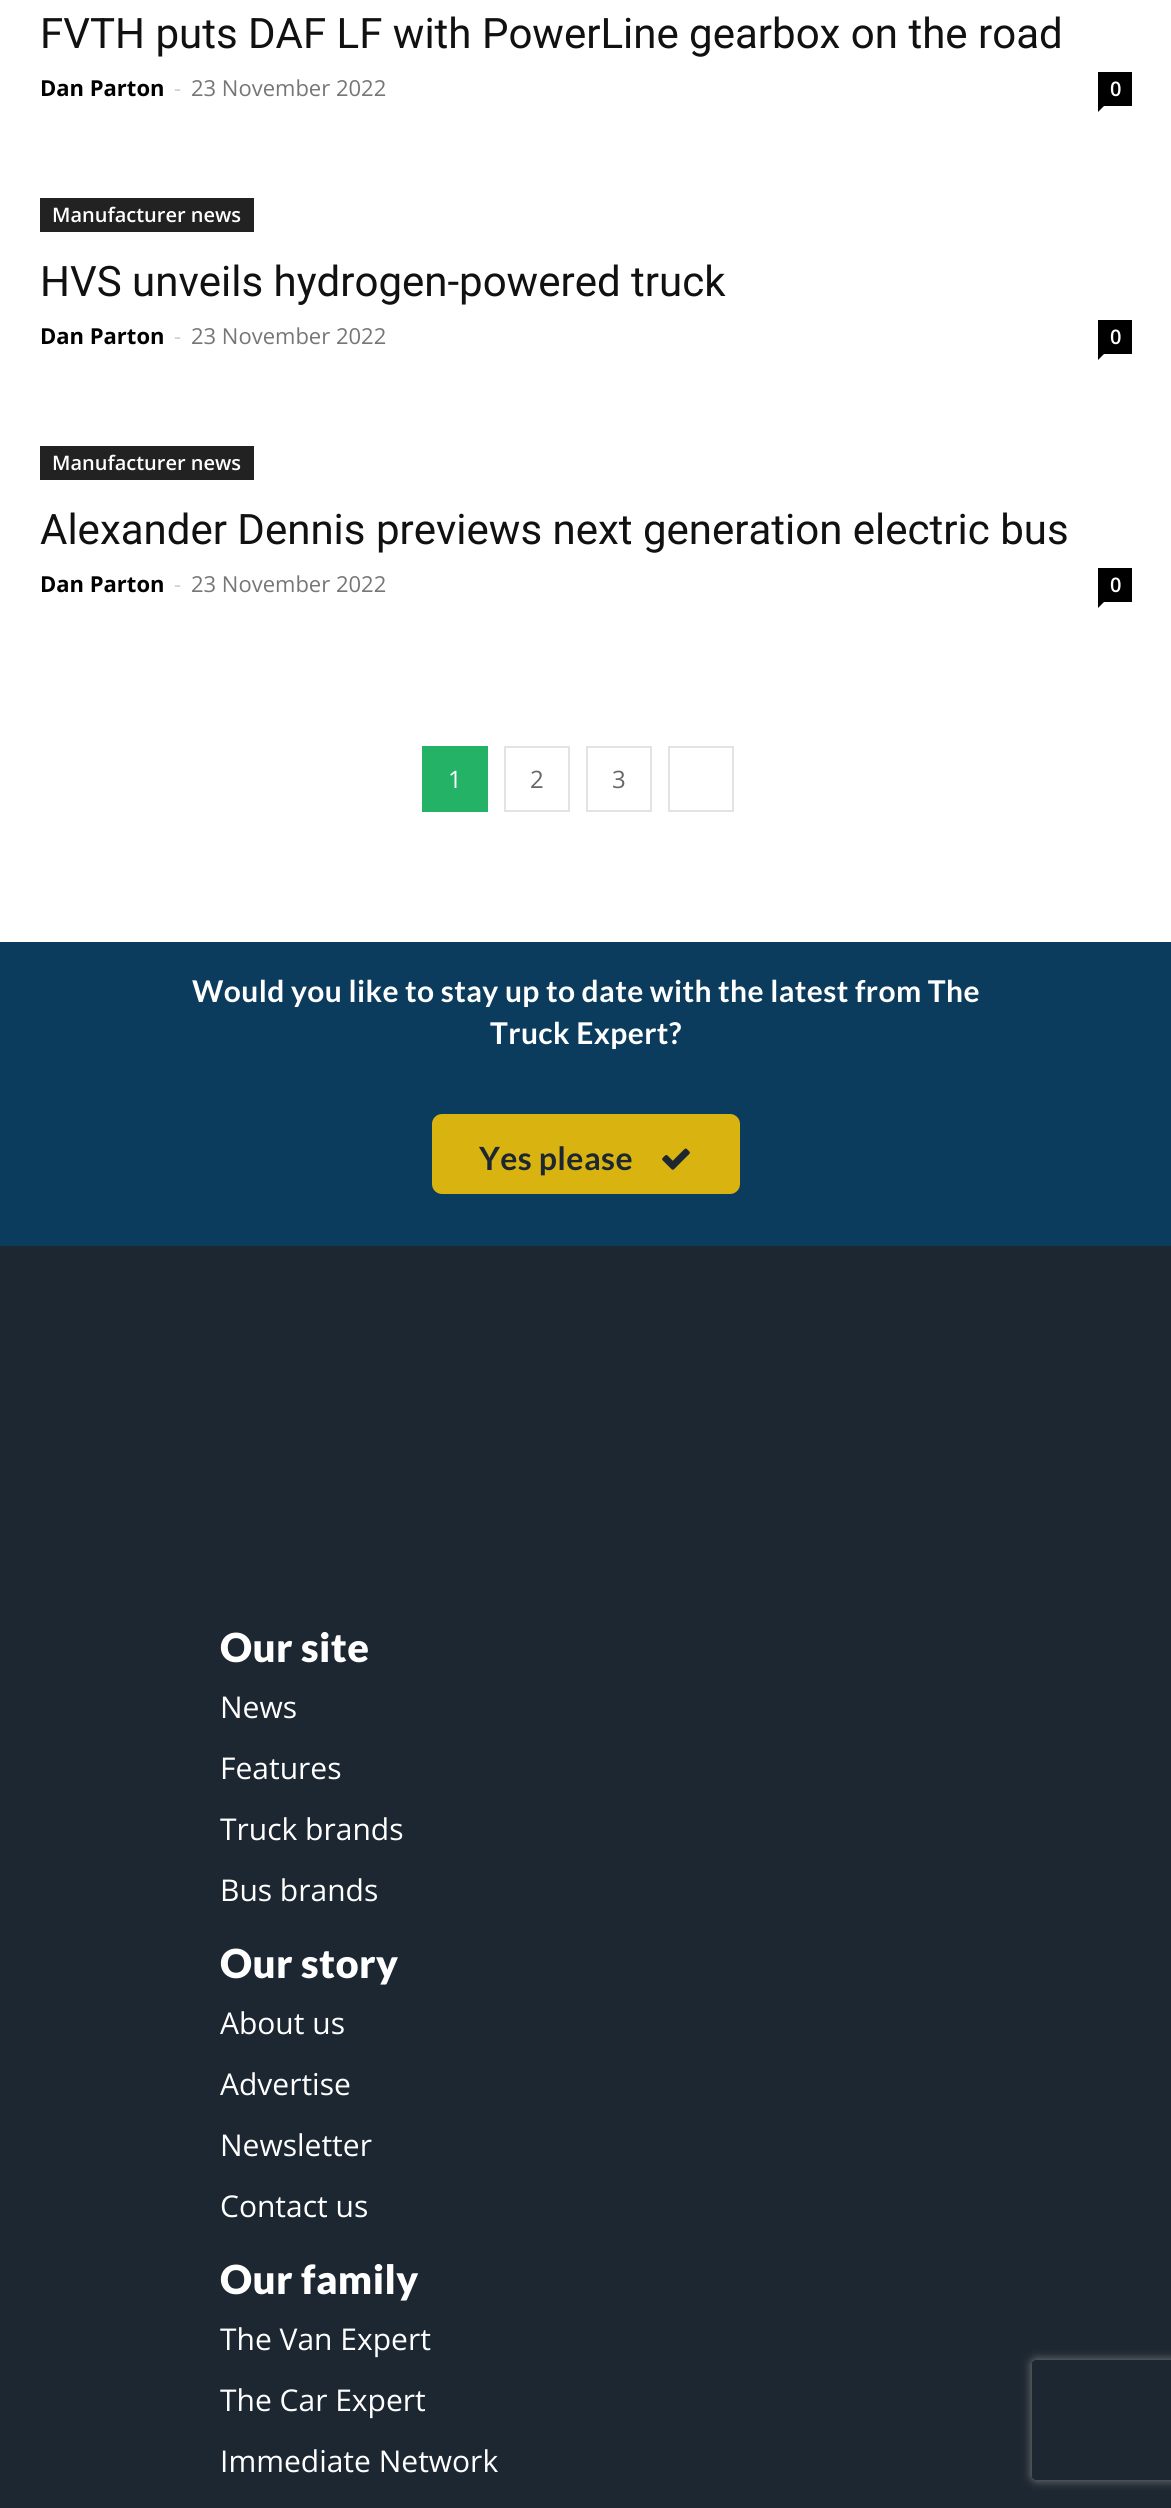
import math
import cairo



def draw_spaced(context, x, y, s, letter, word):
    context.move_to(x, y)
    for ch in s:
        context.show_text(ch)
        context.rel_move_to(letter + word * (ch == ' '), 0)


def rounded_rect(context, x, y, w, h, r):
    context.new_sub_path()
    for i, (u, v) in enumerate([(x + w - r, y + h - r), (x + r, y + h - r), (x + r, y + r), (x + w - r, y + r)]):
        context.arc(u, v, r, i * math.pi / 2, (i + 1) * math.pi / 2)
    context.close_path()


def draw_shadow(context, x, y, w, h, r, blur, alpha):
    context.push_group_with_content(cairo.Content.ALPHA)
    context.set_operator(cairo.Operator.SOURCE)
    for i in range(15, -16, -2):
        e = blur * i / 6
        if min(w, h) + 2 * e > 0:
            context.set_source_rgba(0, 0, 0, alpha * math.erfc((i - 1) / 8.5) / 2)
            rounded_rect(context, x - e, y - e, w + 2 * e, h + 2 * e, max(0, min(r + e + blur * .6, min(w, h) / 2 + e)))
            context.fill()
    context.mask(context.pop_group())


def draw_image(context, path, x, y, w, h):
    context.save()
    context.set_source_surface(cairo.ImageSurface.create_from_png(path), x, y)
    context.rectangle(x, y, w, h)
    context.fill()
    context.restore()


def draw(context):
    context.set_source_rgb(1, 1, 1)
    context.paint()
    context.set_source_rgb(0, 0, 0)
    context.rectangle(1098, 72, 34, 34)
    context.fill()
    context.new_path()
    context.move_to(1098, 106)
    context.line_to(1104, 106)
    context.line_to(1098, 112)
    context.close_path()
    context.fill()
    context.set_source_rgb(34 / 255, 34 / 255, 34 / 255)
    context.rectangle(40, 198, 214, 34)
    context.fill()
    context.set_source_rgb(0, 0, 0)
    context.rectangle(1098, 320, 34, 34)
    context.fill()
    context.new_path()
    context.move_to(1098, 354)
    context.line_to(1104, 354)
    context.line_to(1098, 360)
    context.close_path()
    context.fill()
    context.set_source_rgb(34 / 255, 34 / 255, 34 / 255)
    context.rectangle(40, 446, 214, 34)
    context.fill()
    context.set_source_rgb(0, 0, 0)
    context.rectangle(1098, 568, 34, 34)
    context.fill()
    context.new_path()
    context.move_to(1098, 602)
    context.line_to(1104, 602)
    context.line_to(1098, 608)
    context.close_path()
    context.fill()
    context.set_source_rgb(35 / 255, 178 / 255, 102 / 255)
    context.rectangle(422, 746, 66, 66)
    context.fill()
    context.rectangle(505, 747, 64, 64)
    context.set_source_rgb(227 / 255, 227 / 255, 227 / 255)
    context.stroke()
    context.rectangle(587, 747, 64, 64)
    context.stroke()
    context.rectangle(669, 747, 64, 64)
    context.stroke()
    context.set_source_rgb(11 / 255, 60 / 255, 93 / 255)
    context.rectangle(0, 942, 1171, 304)
    context.fill()
    context.set_source_rgb(217 / 255, 179 / 255, 16 / 255)
    rounded_rect(context, 432, 1114, 308, 80, 10)
    context.fill()
    draw_image(context, "images/1.png", 662, 1148, 28, 22)
    context.set_source_rgb(29 / 255, 39 / 255, 49 / 255)
    context.rectangle(0, 1246, 1171, 1262)
    context.fill()
    context.save()
    context.set_fill_rule(cairo.FillRule.EVEN_ODD)
    context.new_path()
    context.move_to(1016, 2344)
    context.line_to(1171, 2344)
    context.line_to(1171, 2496)
    context.line_to(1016, 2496)
    context.close_path()
    context.move_to(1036, 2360)
    context.line_to(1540, 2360)
    context.curve_to(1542, 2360, 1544, 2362, 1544, 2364)
    context.line_to(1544, 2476)
    context.curve_to(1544, 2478, 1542, 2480, 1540, 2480)
    context.line_to(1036, 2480)
    context.curve_to(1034, 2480, 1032, 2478, 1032, 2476)
    context.line_to(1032, 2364)
    context.curve_to(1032, 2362, 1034, 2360, 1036, 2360)
    context.close_path()
    context.clip()
    context.set_source_rgb(128 / 255, 128 / 255, 128 / 255)
    draw_shadow(context, 1032, 2360, 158, 120, 4, 5, 1)
    context.restore()
    context.select_font_face("Roboto")
    context.set_font_size(42)
    context.set_source_rgb(17 / 255, 17 / 255, 17 / 255)
    context.move_to(40, 48)
    context.show_text("FVTH puts DAF LF with PowerLine gearbox on the road")
    context.select_font_face("Open Sans", cairo.FontSlant.NORMAL, cairo.FontWeight.BOLD)
    context.set_font_size(22)
    context.set_source_rgb(0, 0, 0)
    context.move_to(40, 96)
    context.show_text("Dan Parton")
    context.select_font_face("Open Sans")
    context.set_source_rgb(204 / 255, 204 / 255, 204 / 255)
    context.move_to(174, 96)
    context.show_text("-")
    context.set_source_rgb(118 / 255, 118 / 255, 118 / 255)
    context.move_to(191, 96)
    context.show_text("23 November 2022")
    context.select_font_face("Open Sans SemiBold")
    context.set_font_size(20)
    context.set_source_rgb(1, 1, 1)
    context.move_to(1110, 96)
    context.show_text("0")
    context.move_to(52, 222)
    context.show_text("Manufacturer news")
    context.select_font_face("Roboto")
    context.set_font_size(42)
    context.set_source_rgb(17 / 255, 17 / 255, 17 / 255)
    context.move_to(40, 296)
    context.show_text("HVS unveils hydrogen-powered truck")
    context.select_font_face("Open Sans", cairo.FontSlant.NORMAL, cairo.FontWeight.BOLD)
    context.set_font_size(22)
    context.set_source_rgb(0, 0, 0)
    context.move_to(40, 344)
    context.show_text("Dan Parton")
    context.select_font_face("Open Sans")
    context.set_source_rgb(204 / 255, 204 / 255, 204 / 255)
    context.move_to(174, 344)
    context.show_text("-")
    context.set_source_rgb(118 / 255, 118 / 255, 118 / 255)
    context.move_to(191, 344)
    context.show_text("23 November 2022")
    context.select_font_face("Open Sans SemiBold")
    context.set_font_size(20)
    context.set_source_rgb(1, 1, 1)
    context.move_to(1110, 344)
    context.show_text("0")
    context.move_to(52, 470)
    context.show_text("Manufacturer news")
    context.select_font_face("Roboto")
    context.set_font_size(42)
    context.set_source_rgb(17 / 255, 17 / 255, 17 / 255)
    context.move_to(40, 544)
    context.show_text("Alexander Dennis previews next generation electric bus")
    context.select_font_face("Open Sans", cairo.FontSlant.NORMAL, cairo.FontWeight.BOLD)
    context.set_font_size(22)
    context.set_source_rgb(0, 0, 0)
    context.move_to(40, 592)
    context.show_text("Dan Parton")
    context.select_font_face("Open Sans")
    context.set_source_rgb(204 / 255, 204 / 255, 204 / 255)
    context.move_to(174, 592)
    context.show_text("-")
    context.set_source_rgb(118 / 255, 118 / 255, 118 / 255)
    context.move_to(191, 592)
    context.show_text("23 November 2022")
    context.select_font_face("Open Sans SemiBold")
    context.set_font_size(20)
    context.set_source_rgb(1, 1, 1)
    context.move_to(1110, 592)
    context.show_text("0")
    context.select_font_face("Open Sans")
    context.set_font_size(24)
    context.move_to(448, 788)
    context.show_text("1")
    context.set_source_rgb(102 / 255, 102 / 255, 102 / 255)
    context.move_to(530, 788)
    context.show_text("2")
    context.move_to(612, 788)
    context.show_text("3")
    context.select_font_face("Lato", cairo.FontSlant.NORMAL, cairo.FontWeight.BOLD)
    context.set_font_size(30)
    context.set_source_rgb(1, 1, 1)
    draw_spaced(context, 192, 1002, "Would you like to stay up to date with the latest from The", 0.4, 0)
    draw_spaced(context, 490, 1044, "Truck Expert?", 0.4, 0)
    context.set_font_size(32)
    context.set_source_rgb(29 / 255, 39 / 255, 49 / 255)
    draw_spaced(context, 479, 1170, "Yes please", 0.4, 0)
    context.select_font_face("Lato Black")
    context.set_font_size(40)
    context.set_source_rgb(1, 1, 1)
    draw_spaced(context, 220, 1662, "Our site", 0.4, 0)
    context.select_font_face("Open Sans")
    context.set_font_size(30)
    context.move_to(220, 1718)
    context.show_text("News")
    context.move_to(220, 1779)
    context.show_text("Features")
    context.move_to(220, 1840)
    context.show_text("Truck brands")
    context.move_to(220, 1901)
    context.show_text("Bus brands")
    context.select_font_face("Lato Black")
    context.set_font_size(40)
    draw_spaced(context, 220, 1978, "Our story", 0.4, 0)
    context.select_font_face("Open Sans")
    context.set_font_size(30)
    context.move_to(220, 2034)
    context.show_text("About us")
    context.move_to(220, 2095)
    context.show_text("Advertise")
    context.move_to(220, 2156)
    context.show_text("Newsletter")
    context.move_to(220, 2217)
    context.show_text("Contact us")
    context.select_font_face("Lato Black")
    context.set_font_size(40)
    draw_spaced(context, 220, 2294, "Our family", 0.4, 0)
    context.select_font_face("Open Sans")
    context.set_font_size(30)
    context.move_to(220, 2350)
    context.show_text("The Van Expert")
    context.move_to(220, 2411)
    context.show_text("The Car Expert")
    context.move_to(220, 2472)
    context.show_text("Immediate Network")


surface = cairo.ImageSurface(cairo.Format.RGB24, 1171, 2508)
context = cairo.Context(surface)
options = cairo.FontOptions()
options.set_hint_metrics(cairo.HintMetrics.OFF)
options.set_hint_style(cairo.HintStyle.NONE)
context.set_font_options(options)
context.set_miter_limit(4)
draw(context)
surface.write_to_png("out.png")
